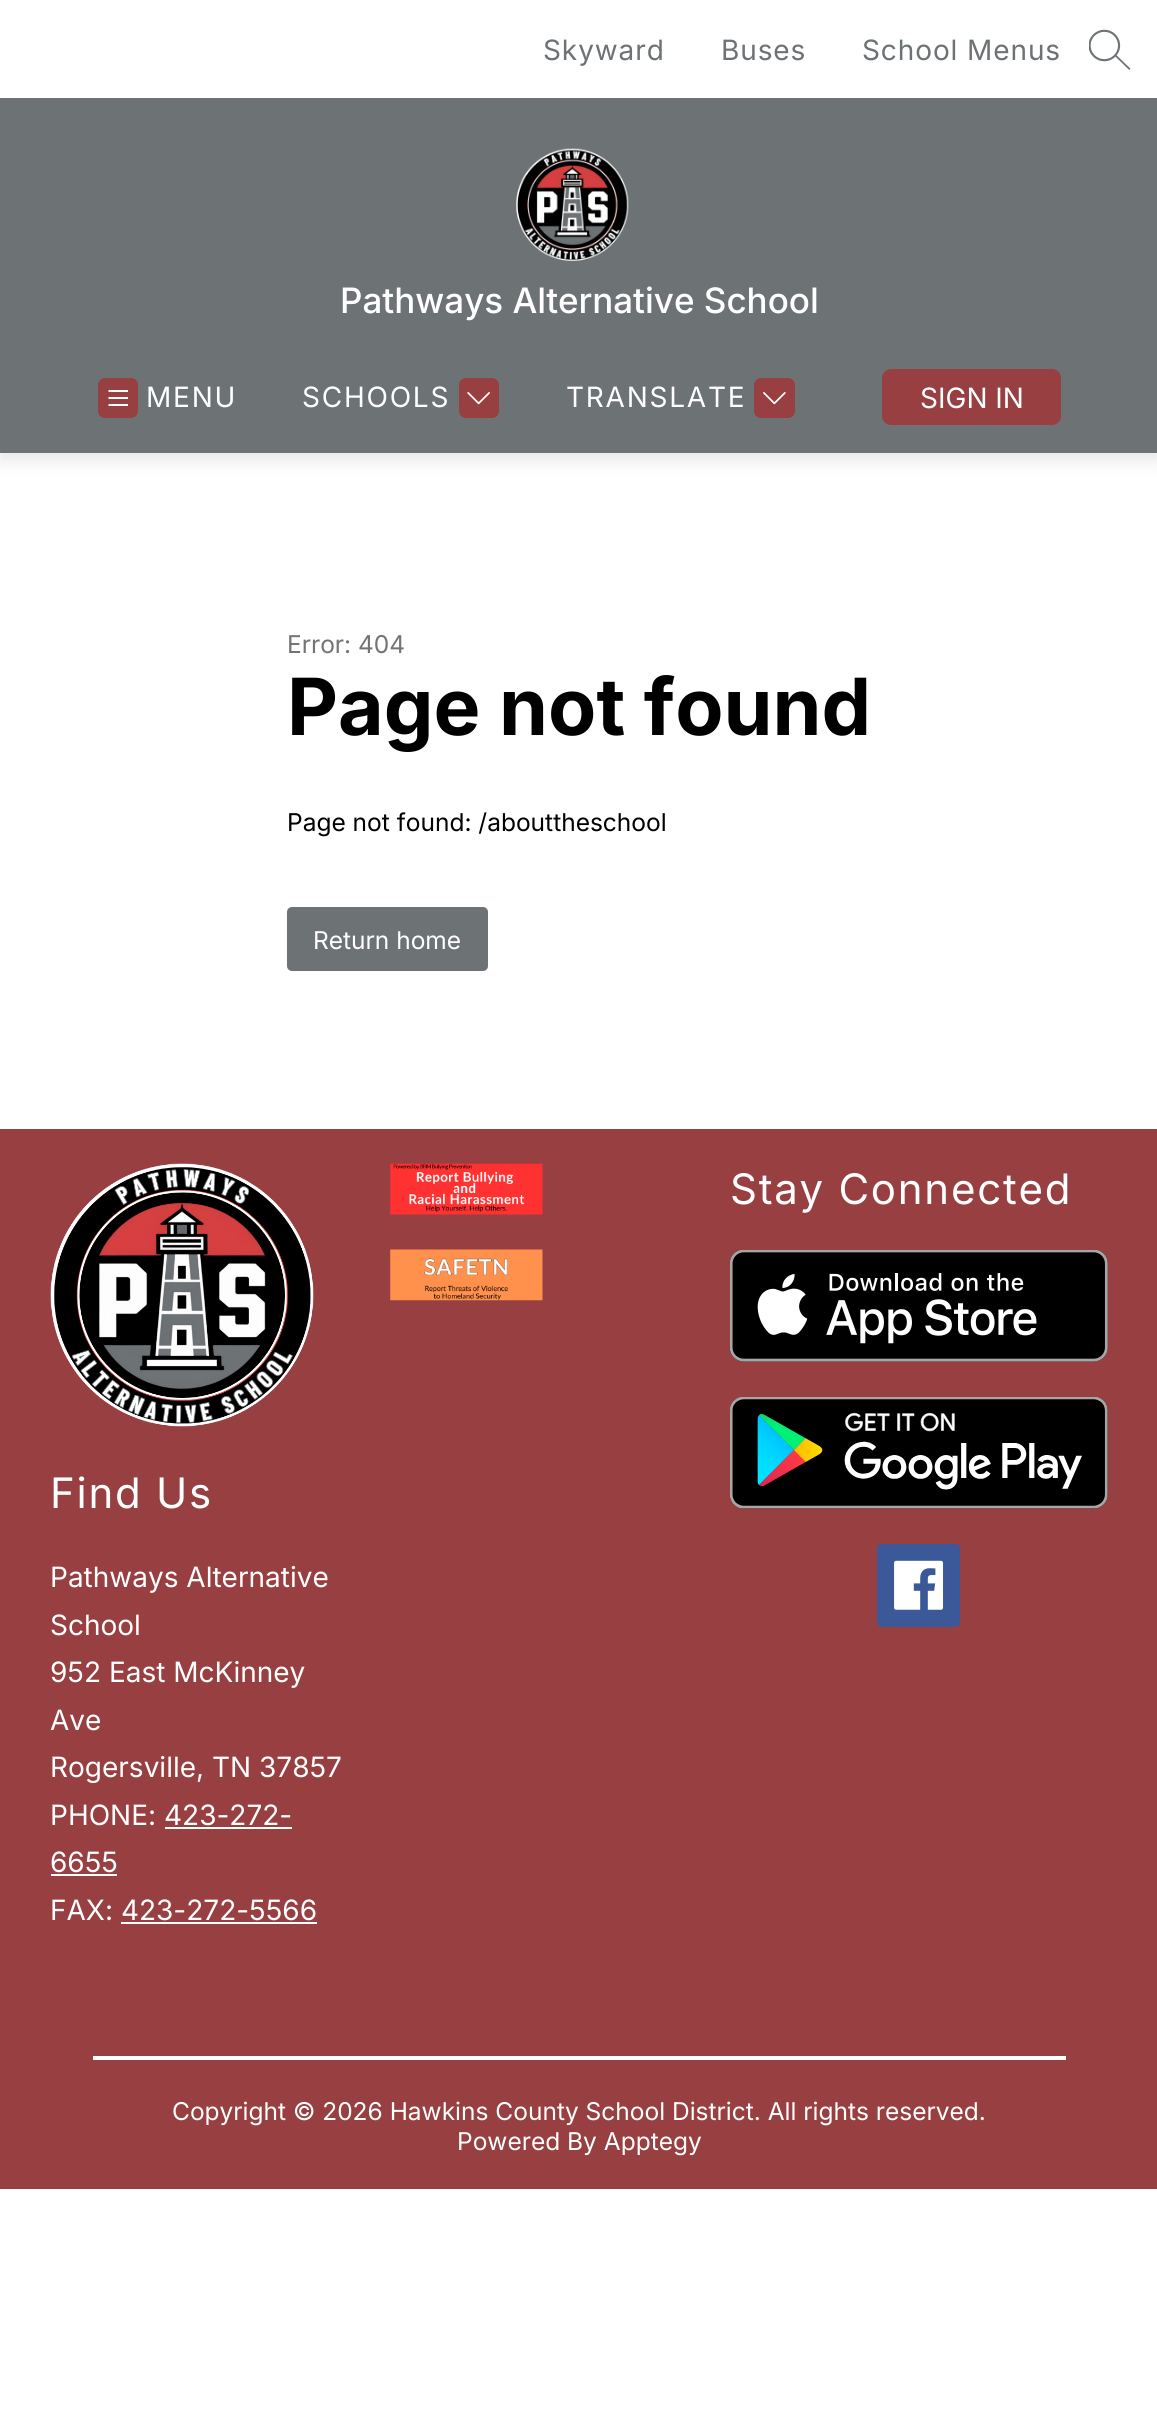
import math
import cairo



def draw_spaced(context, x, y, s, letter, word):
    context.move_to(x, y)
    for ch in s:
        context.show_text(ch)
        context.rel_move_to(letter + word * (ch == ' '), 0)


def rounded_rect(context, x, y, w, h, r):
    context.new_sub_path()
    for i, (u, v) in enumerate([(x + w - r, y + h - r), (x + r, y + h - r), (x + r, y + r), (x + w - r, y + r)]):
        context.arc(u, v, r, i * math.pi / 2, (i + 1) * math.pi / 2)
    context.close_path()


def draw_shadow(context, x, y, w, h, r, blur, alpha):
    context.push_group_with_content(cairo.Content.ALPHA)
    context.set_operator(cairo.Operator.SOURCE)
    for i in range(15, -16, -2):
        e = blur * i / 6
        if min(w, h) + 2 * e > 0:
            context.set_source_rgba(0, 0, 0, alpha * math.erfc((i - 1) / 8.5) / 2)
            rounded_rect(context, x - e, y - e, w + 2 * e, h + 2 * e, max(0, min(r + e + blur * .6, min(w, h) / 2 + e)))
            context.fill()
    context.mask(context.pop_group())


def draw_image(context, path, x, y, w, h):
    context.save()
    context.set_source_surface(cairo.ImageSurface.create_from_png(path), x, y)
    context.rectangle(x, y, w, h)
    context.fill()
    context.restore()


def draw(context):
    context.set_source_rgb(1, 1, 1)
    context.paint()
    context.set_source_rgb(0, 0, 0)
    draw_shadow(context, 0, 7, 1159, 453, 0, 9, 0.1)
    context.set_source_rgb(109 / 255, 114 / 255, 117 / 255)
    context.rectangle(0, 98, 1157, 355)
    context.fill()
    context.set_source_rgb(1, 1, 1)
    context.rectangle(0, 0, 1157, 98)
    context.fill()
    draw_image(context, "images/1.png", 1089, 29, 42, 41)
    draw_image(context, "images/2.png", 516, 148, 113, 113)
    context.set_source_rgb(152 / 255, 63 / 255, 66 / 255)
    rounded_rect(context, 98, 378, 40, 40, 7)
    context.fill()
    context.set_source_rgb(1, 1, 1)
    context.set_fill_rule(cairo.FillRule.EVEN_ODD)
    context.new_path()
    context.move_to(108.5, 390)
    context.line_to(128, 390)
    context.line_to(128, 392)
    context.line_to(108.5, 392)
    context.close_path()
    context.move_to(108.5, 397)
    context.line_to(128, 397)
    context.line_to(128, 399)
    context.line_to(108.5, 399)
    context.close_path()
    context.move_to(128, 404)
    context.line_to(108.5, 404)
    context.line_to(108.5, 406)
    context.line_to(128, 406)
    context.close_path()
    context.fill()
    draw_image(context, "images/3.png", 459, 378, 40, 40)
    draw_image(context, "images/4.png", 754, 378, 41, 40)
    context.set_source_rgb(152 / 255, 63 / 255, 66 / 255)
    rounded_rect(context, 883, 370, 177, 54, 8)
    context.fill_preserve()
    context.stroke()
    context.set_source_rgb(109 / 255, 114 / 255, 117 / 255)
    rounded_rect(context, 287, 907, 201, 64, 5)
    context.fill()
    context.set_source_rgb(152 / 255, 63 / 255, 66 / 255)
    context.rectangle(0, 1129, 1157, 1060)
    context.fill()
    draw_image(context, "images/5.png", 390, 1163, 153, 52)
    draw_image(context, "images/6.png", 390, 1249, 153, 52)
    draw_image(context, "images/7.png", 730, 1250, 378, 112)
    draw_image(context, "images/8.png", 730, 1397, 378, 112)
    draw_image(context, "images/9.png", 877, 1544, 83, 83)
    draw_image(context, "images/10.png", 50, 1163, 264, 264)
    context.set_source_rgb(1, 1, 1)
    context.rectangle(165, 1827, 127, 2)
    context.fill()
    context.rectangle(51, 1874, 66, 2)
    context.fill()
    context.rectangle(121, 1922, 196, 2)
    context.fill()
    context.rectangle(93, 2056, 973, 4)
    context.fill()
    context.select_font_face("Inter")
    context.set_font_size(28)
    context.set_source_rgb(109 / 255, 114 / 255, 117 / 255)
    draw_spaced(context, 543, 60, "Skyward", 0.9, 0)
    draw_spaced(context, 721, 60, "Buses", 0.9, 0)
    draw_spaced(context, 862, 60, "School Menus", 0.9, 0)
    context.select_font_face("Inter Medium")
    context.set_font_size(35)
    context.set_source_rgb(1, 1, 1)
    context.move_to(340, 313)
    context.show_text("Pathways Alternative School")
    context.select_font_face("Inter")
    context.set_font_size(28)
    draw_spaced(context, 146, 407, "MENU", 1.75, 0)
    draw_spaced(context, 302, 407, "SCHOOLS", 1.75, 0)
    draw_spaced(context, 566, 407, "TRANSLATE", 1.75, 0)
    context.move_to(920, 408)
    context.show_text("SIGN IN")
    context.set_font_size(24.5)
    context.set_source_rgb(116 / 255, 116 / 255, 116 / 255)
    context.move_to(287, 653)
    context.show_text("Error: 404")
    context.select_font_face("Inter", cairo.FontSlant.NORMAL, cairo.FontWeight.BOLD)
    context.set_font_size(78.75)
    context.set_source_rgb(0, 0, 0)
    context.move_to(287, 735)
    context.show_text("Page not found")
    context.select_font_face("Inter")
    context.set_font_size(24.5)
    context.move_to(287, 831)
    context.show_text("Page not found: /abouttheschool")
    context.set_source_rgb(1, 1, 1)
    context.move_to(313, 949)
    context.show_text("Return home")
    context.set_font_size(42)
    draw_spaced(context, 730, 1204, "Stay Connected", 1.75, 0)
    draw_spaced(context, 50, 1508, "Find Us", 1.75, 0)
    context.set_font_size(28)
    context.move_to(50, 1587)
    context.show_text("Pathways Alternative")
    context.move_to(50, 1635)
    context.show_text("School")
    context.move_to(50, 1682)
    context.show_text("952 East McKinney")
    context.move_to(50, 1730)
    context.show_text("Ave")
    context.move_to(50, 1777)
    context.show_text("Rogersville, TN 37857")
    context.move_to(50, 1825)
    context.show_text("PHONE: 423-272-")
    context.move_to(50, 1872)
    context.show_text("6655")
    context.move_to(50, 1920)
    context.show_text("FAX: 423-272-5566")
    context.set_font_size(24.5)
    context.move_to(172, 2120)
    context.show_text("Copyright © 2026 Hawkins County School District. All rights reserved.")
    context.move_to(457, 2150)
    context.show_text("Powered By Apptegy")


surface = cairo.ImageSurface(cairo.Format.RGB24, 1157, 2422)
context = cairo.Context(surface)
options = cairo.FontOptions()
options.set_hint_metrics(cairo.HintMetrics.OFF)
options.set_hint_style(cairo.HintStyle.NONE)
context.set_font_options(options)
context.set_miter_limit(4)
draw(context)
surface.write_to_png("out.png")
